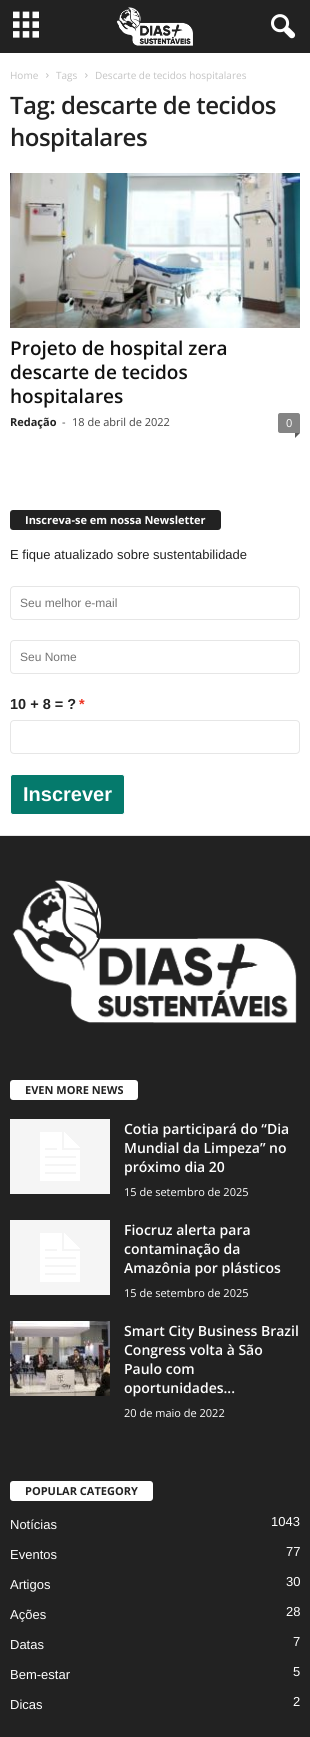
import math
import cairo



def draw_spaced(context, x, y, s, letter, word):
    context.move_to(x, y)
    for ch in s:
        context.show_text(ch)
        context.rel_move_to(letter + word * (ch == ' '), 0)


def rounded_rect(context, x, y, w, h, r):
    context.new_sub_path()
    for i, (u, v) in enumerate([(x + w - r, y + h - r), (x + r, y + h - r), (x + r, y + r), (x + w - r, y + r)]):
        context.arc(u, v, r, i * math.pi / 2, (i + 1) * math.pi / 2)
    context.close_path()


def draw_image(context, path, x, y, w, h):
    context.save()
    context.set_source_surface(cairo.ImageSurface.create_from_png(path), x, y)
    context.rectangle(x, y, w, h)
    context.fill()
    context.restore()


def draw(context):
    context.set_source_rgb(1, 1, 1)
    context.paint()
    context.set_source_rgb(34 / 255, 34 / 255, 34 / 255)
    context.rectangle(0, 0, 310, 53)
    context.fill()
    draw_image(context, "images/1.png", 13, 11, 26, 27)
    draw_image(context, "images/2.png", 116, 7, 77, 39)
    draw_image(context, "images/3.png", 271, 14, 25, 25)
    context.set_source_rgb(230 / 255, 230 / 255, 230 / 255)
    context.rectangle(0, 835, 310, 1)
    context.fill()
    draw_image(context, "images/4.png", 46, 73, 3, 5)
    draw_image(context, "images/4.png", 85, 73, 3, 5)
    draw_image(context, "images/5.png", 10, 173, 290, 155)
    context.set_source_rgb(132 / 255, 132 / 255, 132 / 255)
    context.new_path()
    context.move_to(280, 413)
    context.line_to(298, 413)
    context.curve_to(299, 413, 300, 414, 300, 415)
    context.line_to(300, 433)
    context.line_to(280, 433)
    context.curve_to(279, 433, 278, 432, 278, 431)
    context.line_to(278, 415)
    context.curve_to(278, 414, 279, 413, 280, 413)
    context.close_path()
    context.fill()
    context.set_source_rgb(91 / 255, 91 / 255, 91 / 255)
    context.new_path()
    context.move_to(295, 433)
    context.line_to(300, 433)
    context.line_to(295, 438)
    context.close_path()
    context.fill()
    context.set_source_rgb(34 / 255, 34 / 255, 34 / 255)
    rounded_rect(context, 10, 510, 211, 20, 3)
    context.fill()
    rounded_rect(context, 10.5, 586.5, 289, 33, 3.5)
    context.set_source_rgb(230 / 255, 230 / 255, 230 / 255)
    context.set_line_width(1)
    context.stroke()
    rounded_rect(context, 10.5, 640.5, 289, 33, 3.5)
    context.stroke()
    rounded_rect(context, 10.5, 720.5, 289, 33, 3.5)
    context.stroke()
    context.set_source_rgb(5 / 255, 122 / 255, 108 / 255)
    rounded_rect(context, 10.5, 774.5, 114, 40, 2.5)
    context.fill_preserve()
    context.set_source_rgb(1, 1, 1)
    context.stroke()
    context.set_source_rgb(34 / 255, 34 / 255, 34 / 255)
    context.rectangle(0, 836, 310, 901)
    context.fill()
    draw_image(context, "images/6.png", 12, 880, 285, 144)
    context.set_source_rgb(1, 1, 1)
    rounded_rect(context, 10, 1080, 128, 20, 3)
    context.fill()
    draw_image(context, "images/7.png", 10, 1119, 100, 75)
    draw_image(context, "images/7.png", 10, 1220, 100, 75)
    draw_image(context, "images/8.png", 10, 1321, 100, 75)
    rounded_rect(context, 10, 1481, 143, 20, 3)
    context.fill()
    context.select_font_face("Open Sans")
    context.set_font_size(10)
    context.set_source_rgb(195 / 255, 195 / 255, 195 / 255)
    context.move_to(10, 79)
    context.show_text("Home")
    context.move_to(56, 79)
    context.show_text("Tags")
    context.move_to(95, 79)
    context.show_text("Descarte de tecidos hospitalares")
    context.select_font_face("Open Sans SemiBold")
    context.set_font_size(24)
    context.set_source_rgb(34 / 255, 34 / 255, 34 / 255)
    draw_spaced(context, 10, 114, "Tag: descarte de tecidos", -0.5, 0)
    draw_spaced(context, 10, 146, "hospitalares", -0.5, 0)
    context.set_font_size(19)
    context.set_source_rgb(17 / 255, 17 / 255, 17 / 255)
    context.move_to(10, 355)
    context.show_text("Projeto de hospital zera")
    context.move_to(10, 379)
    context.show_text("descarte de tecidos")
    context.move_to(10, 403)
    context.show_text("hospitalares")
    context.select_font_face("Open Sans", cairo.FontSlant.NORMAL, cairo.FontWeight.BOLD)
    context.set_font_size(11)
    context.set_source_rgb(34 / 255, 34 / 255, 34 / 255)
    context.move_to(10, 426)
    context.show_text("Redação")
    context.select_font_face("Open Sans")
    context.set_source_rgb(68 / 255, 68 / 255, 68 / 255)
    context.move_to(62, 426)
    context.show_text("-")
    context.move_to(72, 426)
    context.show_text("18 de abril de 2022")
    context.set_source_rgb(1, 1, 1)
    context.move_to(286, 427)
    context.show_text("0")
    context.select_font_face("Open Sans", cairo.FontSlant.NORMAL, cairo.FontWeight.BOLD)
    context.move_to(25, 524)
    context.show_text("Inscreva-se em nossa Newsletter")
    context.select_font_face("Liberation Sans")
    context.set_font_size(13)
    context.set_source_rgb(34 / 255, 34 / 255, 34 / 255)
    context.move_to(10, 559)
    context.show_text("E fique atualizado sobre sustentabilidade")
    context.set_font_size(12)
    context.set_source_rgb(117 / 255, 117 / 255, 117 / 255)
    context.move_to(20, 607)
    context.show_text("Seu melhor e-mail")
    context.move_to(20, 661)
    context.show_text("Seu Nome")
    context.select_font_face("Liberation Sans", cairo.FontSlant.NORMAL, cairo.FontWeight.BOLD)
    context.set_font_size(14.5)
    context.set_source_rgb(34 / 255, 34 / 255, 34 / 255)
    context.move_to(10, 709)
    context.show_text("10 + 8 = ?")
    context.set_source_rgb(238 / 255, 51 / 255, 34 / 255)
    context.move_to(79, 709)
    context.show_text("*")
    context.set_font_size(20)
    context.set_source_rgb(1, 1, 1)
    context.move_to(23, 801)
    context.show_text("Inscrever")
    context.select_font_face("Open Sans", cairo.FontSlant.NORMAL, cairo.FontWeight.BOLD)
    context.set_font_size(11)
    context.set_source_rgb(34 / 255, 34 / 255, 34 / 255)
    context.move_to(25, 1094)
    context.show_text("EVEN MORE NEWS")
    context.select_font_face("Open Sans SemiBold")
    context.set_font_size(14)
    context.set_source_rgb(1, 1, 1)
    context.move_to(124, 1134)
    context.show_text("Cotia participará do “Dia")
    context.move_to(124, 1153)
    context.show_text("Mundial da Limpeza” no")
    context.move_to(124, 1172)
    context.show_text("próximo dia 20")
    context.select_font_face("Open Sans")
    context.set_font_size(11)
    context.move_to(124, 1196)
    context.show_text("15 de setembro de 2025")
    context.select_font_face("Open Sans SemiBold")
    context.set_font_size(14)
    context.move_to(124, 1235)
    context.show_text("Fiocruz alerta para")
    context.move_to(124, 1254)
    context.show_text("contaminação da")
    context.move_to(124, 1273)
    context.show_text("Amazônia por plásticos")
    context.select_font_face("Open Sans")
    context.set_font_size(11)
    context.move_to(124, 1297)
    context.show_text("15 de setembro de 2025")
    context.select_font_face("Open Sans SemiBold")
    context.set_font_size(14)
    context.move_to(124, 1336)
    context.show_text("Smart City Business Brazil")
    context.move_to(124, 1355)
    context.show_text("Congress volta à São")
    context.move_to(124, 1374)
    context.show_text("Paulo com")
    context.move_to(124, 1393)
    context.show_text("oportunidades...")
    context.select_font_face("Open Sans")
    context.set_font_size(11)
    context.move_to(124, 1417)
    context.show_text("20 de maio de 2022")
    context.select_font_face("Open Sans", cairo.FontSlant.NORMAL, cairo.FontWeight.BOLD)
    context.set_source_rgb(34 / 255, 34 / 255, 34 / 255)
    context.move_to(25, 1495)
    context.show_text("POPULAR CATEGORY")
    context.select_font_face("Liberation Sans")
    context.set_font_size(13)
    context.set_source_rgb(1, 1, 1)
    context.move_to(10, 1529)
    context.show_text("Notícias")
    context.move_to(271, 1526)
    context.show_text("1043")
    context.move_to(10, 1559)
    context.show_text("Eventos")
    context.move_to(286, 1556)
    context.show_text("77")
    context.move_to(10, 1589)
    context.show_text("Artigos")
    context.move_to(286, 1586)
    context.show_text("30")
    context.move_to(10, 1619)
    context.show_text("Ações")
    context.move_to(286, 1616)
    context.show_text("28")
    context.move_to(10, 1649)
    context.show_text("Datas")
    context.move_to(293, 1646)
    context.show_text("7")
    context.move_to(10, 1679)
    context.show_text("Bem-estar")
    context.move_to(293, 1676)
    context.show_text("5")
    context.move_to(10, 1709)
    context.show_text("Dicas")
    context.move_to(293, 1706)
    context.show_text("2")


surface = cairo.ImageSurface(cairo.Format.RGB24, 310, 1737)
context = cairo.Context(surface)
options = cairo.FontOptions()
options.set_hint_metrics(cairo.HintMetrics.OFF)
options.set_hint_style(cairo.HintStyle.NONE)
context.set_font_options(options)
context.set_miter_limit(4)
draw(context)
surface.write_to_png("out.png")
